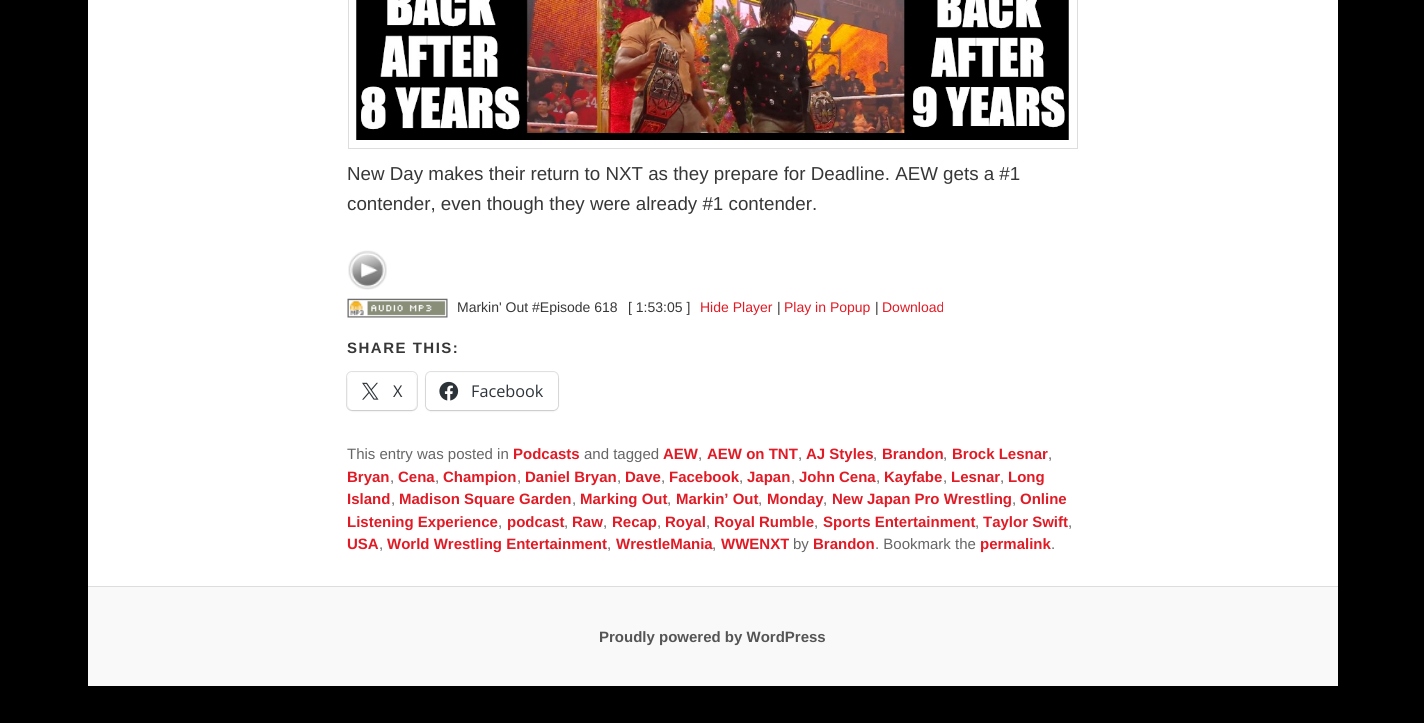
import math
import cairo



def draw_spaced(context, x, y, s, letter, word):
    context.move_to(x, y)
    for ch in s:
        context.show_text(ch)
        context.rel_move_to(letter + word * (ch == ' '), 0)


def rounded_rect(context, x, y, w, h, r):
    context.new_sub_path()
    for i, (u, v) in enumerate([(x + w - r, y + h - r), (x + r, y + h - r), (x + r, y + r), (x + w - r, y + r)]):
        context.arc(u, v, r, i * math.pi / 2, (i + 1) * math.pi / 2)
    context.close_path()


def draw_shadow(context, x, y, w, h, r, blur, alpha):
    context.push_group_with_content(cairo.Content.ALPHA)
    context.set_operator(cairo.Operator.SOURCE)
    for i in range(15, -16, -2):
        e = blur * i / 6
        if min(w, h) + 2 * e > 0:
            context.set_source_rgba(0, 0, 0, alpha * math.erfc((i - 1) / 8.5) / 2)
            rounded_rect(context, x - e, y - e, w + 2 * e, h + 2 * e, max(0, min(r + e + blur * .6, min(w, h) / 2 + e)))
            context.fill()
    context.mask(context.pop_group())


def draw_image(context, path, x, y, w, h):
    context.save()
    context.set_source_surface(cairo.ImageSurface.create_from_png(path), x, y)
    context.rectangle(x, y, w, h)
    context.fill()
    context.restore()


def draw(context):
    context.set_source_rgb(0, 0, 0)
    context.paint()
    context.set_source_rgb(1, 1, 1)
    context.rectangle(88, 0, 1250, 586)
    context.fill()
    context.rectangle(348.5, -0.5, 729, 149)
    context.set_source_rgb(221 / 255, 221 / 255, 221 / 255)
    context.set_line_width(1)
    context.stroke()
    draw_image(context, "images/1.png", 356, 0, 713, 140)
    draw_image(context, "images/2.png", 348, 250, 39, 40)
    draw_image(context, "images/3.png", 347, 298, 101, 20)
    rounded_rect(context, 346.5, 371.5, 71, 39, 5.5)
    context.set_source_rgb(224 / 255, 224 / 255, 224 / 255)
    context.stroke()
    context.set_source_rgb(0, 0, 0)
    draw_shadow(context, 348, 374, 68, 37, 5, 1, 0.12)
    context.set_source_rgb(1, 1, 1)
    rounded_rect(context, 348, 373, 68, 37, 5)
    context.fill()
    draw_image(context, "images/4.png", 362, 382, 17, 18)
    rounded_rect(context, 425.5, 371.5, 133, 39, 5.5)
    context.set_source_rgb(224 / 255, 224 / 255, 224 / 255)
    context.stroke()
    context.set_source_rgb(0, 0, 0)
    draw_shadow(context, 426, 374, 132, 37, 5, 1, 0.12)
    context.set_source_rgb(1, 1, 1)
    rounded_rect(context, 426, 373, 132, 37, 5)
    context.fill()
    draw_image(context, "images/5.png", 439, 381, 20, 20)
    context.set_source_rgb(249 / 255, 249 / 255, 249 / 255)
    context.rectangle(88, 587, 1250, 99)
    context.fill()
    context.set_source_rgb(221 / 255, 221 / 255, 221 / 255)
    context.rectangle(88, 586, 1250, 1)
    context.fill()
    context.select_font_face("Liberation Sans")
    context.set_font_size(18.75)
    context.set_source_rgb(55 / 255, 55 / 255, 55 / 255)
    context.move_to(347, 180)
    context.show_text("New Day makes their return to NXT as they prepare for Deadline. AEW gets a #1")
    context.move_to(347, 210)
    context.show_text("contender, even though they were already #1 contender.")
    context.set_font_size(14)
    context.move_to(457, 312)
    context.show_text("Markin' Out #Episode 618")
    context.move_to(628, 312)
    context.show_text("[ 1:53:05 ]")
    context.set_source_rgb(224 / 255, 27 / 255, 37 / 255)
    context.move_to(700, 312)
    context.show_text("Hide Player")
    context.set_source_rgb(55 / 255, 55 / 255, 55 / 255)
    context.move_to(777, 312)
    context.show_text("|")
    context.set_source_rgb(224 / 255, 27 / 255, 37 / 255)
    context.move_to(784, 312)
    context.show_text("Play in Popup")
    context.set_source_rgb(55 / 255, 55 / 255, 55 / 255)
    context.move_to(875, 312)
    context.show_text("|")
    context.set_source_rgb(224 / 255, 27 / 255, 37 / 255)
    context.move_to(882, 312)
    context.show_text("Download")
    context.select_font_face("Liberation Sans", cairo.FontSlant.NORMAL, cairo.FontWeight.BOLD)
    context.set_font_size(15)
    context.set_source_rgb(55 / 255, 55 / 255, 55 / 255)
    draw_spaced(context, 347, 353, "SHARE THIS:", 1.5, 0)
    context.select_font_face("Open Sans")
    context.set_font_size(16.25)
    context.set_source_rgb(44 / 255, 51 / 255, 56 / 255)
    context.move_to(393, 397)
    context.show_text("X")
    context.move_to(471, 397)
    context.show_text("Facebook")
    context.select_font_face("Liberation Sans")
    context.set_font_size(15)
    context.set_source_rgb(102 / 255, 102 / 255, 102 / 255)
    context.move_to(347, 459)
    context.show_text("This entry was posted in")
    context.select_font_face("Liberation Sans", cairo.FontSlant.NORMAL, cairo.FontWeight.BOLD)
    context.set_source_rgb(224 / 255, 27 / 255, 37 / 255)
    context.move_to(513, 459)
    context.show_text("Podcasts")
    context.select_font_face("Liberation Sans")
    context.set_source_rgb(102 / 255, 102 / 255, 102 / 255)
    context.move_to(584, 459)
    context.show_text("and tagged")
    context.select_font_face("Liberation Sans", cairo.FontSlant.NORMAL, cairo.FontWeight.BOLD)
    context.set_source_rgb(224 / 255, 27 / 255, 37 / 255)
    context.move_to(663, 459)
    context.show_text("AEW")
    context.select_font_face("Liberation Sans")
    context.set_source_rgb(102 / 255, 102 / 255, 102 / 255)
    context.move_to(698, 459)
    context.show_text(",")
    context.select_font_face("Liberation Sans", cairo.FontSlant.NORMAL, cairo.FontWeight.BOLD)
    context.set_source_rgb(224 / 255, 27 / 255, 37 / 255)
    context.move_to(707, 459)
    context.show_text("AEW on TNT")
    context.select_font_face("Liberation Sans")
    context.set_source_rgb(102 / 255, 102 / 255, 102 / 255)
    context.move_to(798, 459)
    context.show_text(",")
    context.select_font_face("Liberation Sans", cairo.FontSlant.NORMAL, cairo.FontWeight.BOLD)
    context.set_source_rgb(224 / 255, 27 / 255, 37 / 255)
    context.move_to(806, 459)
    context.show_text("AJ Styles")
    context.select_font_face("Liberation Sans")
    context.set_source_rgb(102 / 255, 102 / 255, 102 / 255)
    context.move_to(873, 459)
    context.show_text(",")
    context.select_font_face("Liberation Sans", cairo.FontSlant.NORMAL, cairo.FontWeight.BOLD)
    context.set_source_rgb(224 / 255, 27 / 255, 37 / 255)
    context.move_to(882, 459)
    context.show_text("Brandon")
    context.select_font_face("Liberation Sans")
    context.set_source_rgb(102 / 255, 102 / 255, 102 / 255)
    context.move_to(943, 459)
    context.show_text(",")
    context.select_font_face("Liberation Sans", cairo.FontSlant.NORMAL, cairo.FontWeight.BOLD)
    context.set_source_rgb(224 / 255, 27 / 255, 37 / 255)
    context.move_to(952, 459)
    context.show_text("Brock Lesnar")
    context.select_font_face("Liberation Sans")
    context.set_source_rgb(102 / 255, 102 / 255, 102 / 255)
    context.move_to(1048, 459)
    context.show_text(",")
    context.select_font_face("Liberation Sans", cairo.FontSlant.NORMAL, cairo.FontWeight.BOLD)
    context.set_source_rgb(224 / 255, 27 / 255, 37 / 255)
    context.move_to(347, 482)
    context.show_text("Bryan")
    context.select_font_face("Liberation Sans")
    context.set_source_rgb(102 / 255, 102 / 255, 102 / 255)
    context.move_to(390, 482)
    context.show_text(",")
    context.select_font_face("Liberation Sans", cairo.FontSlant.NORMAL, cairo.FontWeight.BOLD)
    context.set_source_rgb(224 / 255, 27 / 255, 37 / 255)
    context.move_to(398, 482)
    context.show_text("Cena")
    context.select_font_face("Liberation Sans")
    context.set_source_rgb(102 / 255, 102 / 255, 102 / 255)
    context.move_to(435, 482)
    context.show_text(",")
    context.select_font_face("Liberation Sans", cairo.FontSlant.NORMAL, cairo.FontWeight.BOLD)
    context.set_source_rgb(224 / 255, 27 / 255, 37 / 255)
    context.move_to(443, 482)
    context.show_text("Champion")
    context.select_font_face("Liberation Sans")
    context.set_source_rgb(102 / 255, 102 / 255, 102 / 255)
    context.move_to(517, 482)
    context.show_text(",")
    context.select_font_face("Liberation Sans", cairo.FontSlant.NORMAL, cairo.FontWeight.BOLD)
    context.set_source_rgb(224 / 255, 27 / 255, 37 / 255)
    context.move_to(525, 482)
    context.show_text("Daniel Bryan")
    context.select_font_face("Liberation Sans")
    context.set_source_rgb(102 / 255, 102 / 255, 102 / 255)
    context.move_to(617, 482)
    context.show_text(",")
    context.select_font_face("Liberation Sans", cairo.FontSlant.NORMAL, cairo.FontWeight.BOLD)
    context.set_source_rgb(224 / 255, 27 / 255, 37 / 255)
    context.move_to(625, 482)
    context.show_text("Dave")
    context.select_font_face("Liberation Sans")
    context.set_source_rgb(102 / 255, 102 / 255, 102 / 255)
    context.move_to(661, 482)
    context.show_text(",")
    context.select_font_face("Liberation Sans", cairo.FontSlant.NORMAL, cairo.FontWeight.BOLD)
    context.set_source_rgb(224 / 255, 27 / 255, 37 / 255)
    context.move_to(669, 482)
    context.show_text("Facebook")
    context.select_font_face("Liberation Sans")
    context.set_source_rgb(102 / 255, 102 / 255, 102 / 255)
    context.move_to(739, 482)
    context.show_text(",")
    context.select_font_face("Liberation Sans", cairo.FontSlant.NORMAL, cairo.FontWeight.BOLD)
    context.set_source_rgb(224 / 255, 27 / 255, 37 / 255)
    context.move_to(747, 482)
    context.show_text("Japan")
    context.select_font_face("Liberation Sans")
    context.set_source_rgb(102 / 255, 102 / 255, 102 / 255)
    context.move_to(791, 482)
    context.show_text(",")
    context.select_font_face("Liberation Sans", cairo.FontSlant.NORMAL, cairo.FontWeight.BOLD)
    context.set_source_rgb(224 / 255, 27 / 255, 37 / 255)
    context.move_to(799, 482)
    context.show_text("John Cena")
    context.select_font_face("Liberation Sans")
    context.set_source_rgb(102 / 255, 102 / 255, 102 / 255)
    context.move_to(876, 482)
    context.show_text(",")
    context.select_font_face("Liberation Sans", cairo.FontSlant.NORMAL, cairo.FontWeight.BOLD)
    context.set_source_rgb(224 / 255, 27 / 255, 37 / 255)
    context.move_to(884, 482)
    context.show_text("Kayfabe")
    context.select_font_face("Liberation Sans")
    context.set_source_rgb(102 / 255, 102 / 255, 102 / 255)
    context.move_to(943, 482)
    context.show_text(",")
    context.select_font_face("Liberation Sans", cairo.FontSlant.NORMAL, cairo.FontWeight.BOLD)
    context.set_source_rgb(224 / 255, 27 / 255, 37 / 255)
    context.move_to(951, 482)
    context.show_text("Lesnar")
    context.select_font_face("Liberation Sans")
    context.set_source_rgb(102 / 255, 102 / 255, 102 / 255)
    context.move_to(1000, 482)
    context.show_text(",")
    context.select_font_face("Liberation Sans", cairo.FontSlant.NORMAL, cairo.FontWeight.BOLD)
    context.set_source_rgb(224 / 255, 27 / 255, 37 / 255)
    context.move_to(1008, 482)
    context.show_text("Long")
    context.move_to(347, 504)
    context.show_text("Island")
    context.select_font_face("Liberation Sans")
    context.set_source_rgb(102 / 255, 102 / 255, 102 / 255)
    context.move_to(391, 504)
    context.show_text(",")
    context.select_font_face("Liberation Sans", cairo.FontSlant.NORMAL, cairo.FontWeight.BOLD)
    context.set_source_rgb(224 / 255, 27 / 255, 37 / 255)
    context.move_to(399, 504)
    context.show_text("Madison Square Garden")
    context.select_font_face("Liberation Sans")
    context.set_source_rgb(102 / 255, 102 / 255, 102 / 255)
    context.move_to(572, 504)
    context.show_text(",")
    context.select_font_face("Liberation Sans", cairo.FontSlant.NORMAL, cairo.FontWeight.BOLD)
    context.set_source_rgb(224 / 255, 27 / 255, 37 / 255)
    context.move_to(580, 504)
    context.show_text("Marking Out")
    context.select_font_face("Liberation Sans")
    context.set_source_rgb(102 / 255, 102 / 255, 102 / 255)
    context.move_to(667, 504)
    context.show_text(",")
    context.select_font_face("Liberation Sans", cairo.FontSlant.NORMAL, cairo.FontWeight.BOLD)
    context.set_source_rgb(224 / 255, 27 / 255, 37 / 255)
    context.move_to(676, 504)
    context.show_text("Markin’ Out")
    context.select_font_face("Liberation Sans")
    context.set_source_rgb(102 / 255, 102 / 255, 102 / 255)
    context.move_to(758, 504)
    context.show_text(",")
    context.select_font_face("Liberation Sans", cairo.FontSlant.NORMAL, cairo.FontWeight.BOLD)
    context.set_source_rgb(224 / 255, 27 / 255, 37 / 255)
    context.move_to(767, 504)
    context.show_text("Monday")
    context.select_font_face("Liberation Sans")
    context.set_source_rgb(102 / 255, 102 / 255, 102 / 255)
    context.move_to(823, 504)
    context.show_text(",")
    context.select_font_face("Liberation Sans", cairo.FontSlant.NORMAL, cairo.FontWeight.BOLD)
    context.set_source_rgb(224 / 255, 27 / 255, 37 / 255)
    context.move_to(832, 504)
    context.show_text("New Japan Pro Wrestling")
    context.select_font_face("Liberation Sans")
    context.set_source_rgb(102 / 255, 102 / 255, 102 / 255)
    context.move_to(1012, 504)
    context.show_text(",")
    context.select_font_face("Liberation Sans", cairo.FontSlant.NORMAL, cairo.FontWeight.BOLD)
    context.set_source_rgb(224 / 255, 27 / 255, 37 / 255)
    context.move_to(1020, 504)
    context.show_text("Online")
    context.move_to(347, 527)
    context.show_text("Listening Experience")
    context.select_font_face("Liberation Sans")
    context.set_source_rgb(102 / 255, 102 / 255, 102 / 255)
    context.move_to(498, 527)
    context.show_text(",")
    context.select_font_face("Liberation Sans", cairo.FontSlant.NORMAL, cairo.FontWeight.BOLD)
    context.set_source_rgb(224 / 255, 27 / 255, 37 / 255)
    context.move_to(507, 527)
    context.show_text("podcast")
    context.select_font_face("Liberation Sans")
    context.set_source_rgb(102 / 255, 102 / 255, 102 / 255)
    context.move_to(564, 527)
    context.show_text(",")
    context.select_font_face("Liberation Sans", cairo.FontSlant.NORMAL, cairo.FontWeight.BOLD)
    context.set_source_rgb(224 / 255, 27 / 255, 37 / 255)
    context.move_to(572, 527)
    context.show_text("Raw")
    context.select_font_face("Liberation Sans")
    context.set_source_rgb(102 / 255, 102 / 255, 102 / 255)
    context.move_to(603, 527)
    context.show_text(",")
    context.select_font_face("Liberation Sans", cairo.FontSlant.NORMAL, cairo.FontWeight.BOLD)
    context.set_source_rgb(224 / 255, 27 / 255, 37 / 255)
    context.move_to(612, 527)
    context.show_text("Recap")
    context.select_font_face("Liberation Sans")
    context.set_source_rgb(102 / 255, 102 / 255, 102 / 255)
    context.move_to(657, 527)
    context.show_text(",")
    context.select_font_face("Liberation Sans", cairo.FontSlant.NORMAL, cairo.FontWeight.BOLD)
    context.set_source_rgb(224 / 255, 27 / 255, 37 / 255)
    context.move_to(665, 527)
    context.show_text("Royal")
    context.select_font_face("Liberation Sans")
    context.set_source_rgb(102 / 255, 102 / 255, 102 / 255)
    context.move_to(706, 527)
    context.show_text(",")
    context.select_font_face("Liberation Sans", cairo.FontSlant.NORMAL, cairo.FontWeight.BOLD)
    context.set_source_rgb(224 / 255, 27 / 255, 37 / 255)
    context.move_to(714, 527)
    context.show_text("Royal Rumble")
    context.select_font_face("Liberation Sans")
    context.set_source_rgb(102 / 255, 102 / 255, 102 / 255)
    context.move_to(814, 527)
    context.show_text(",")
    context.select_font_face("Liberation Sans", cairo.FontSlant.NORMAL, cairo.FontWeight.BOLD)
    context.set_source_rgb(224 / 255, 27 / 255, 37 / 255)
    context.move_to(823, 527)
    context.show_text("Sports Entertainment")
    context.select_font_face("Liberation Sans")
    context.set_source_rgb(102 / 255, 102 / 255, 102 / 255)
    context.move_to(975, 527)
    context.show_text(",")
    context.select_font_face("Liberation Sans", cairo.FontSlant.NORMAL, cairo.FontWeight.BOLD)
    context.set_source_rgb(224 / 255, 27 / 255, 37 / 255)
    context.move_to(983, 527)
    context.show_text("Taylor Swift")
    context.select_font_face("Liberation Sans")
    context.set_source_rgb(102 / 255, 102 / 255, 102 / 255)
    context.move_to(1068, 527)
    context.show_text(",")
    context.select_font_face("Liberation Sans", cairo.FontSlant.NORMAL, cairo.FontWeight.BOLD)
    context.set_source_rgb(224 / 255, 27 / 255, 37 / 255)
    context.move_to(347, 549)
    context.show_text("USA")
    context.select_font_face("Liberation Sans")
    context.set_source_rgb(102 / 255, 102 / 255, 102 / 255)
    context.move_to(379, 549)
    context.show_text(",")
    context.select_font_face("Liberation Sans", cairo.FontSlant.NORMAL, cairo.FontWeight.BOLD)
    context.set_source_rgb(224 / 255, 27 / 255, 37 / 255)
    context.move_to(387, 549)
    context.show_text("World Wrestling Entertainment")
    context.select_font_face("Liberation Sans")
    context.set_source_rgb(102 / 255, 102 / 255, 102 / 255)
    context.move_to(607, 549)
    context.show_text(",")
    context.select_font_face("Liberation Sans", cairo.FontSlant.NORMAL, cairo.FontWeight.BOLD)
    context.set_source_rgb(224 / 255, 27 / 255, 37 / 255)
    context.move_to(616, 549)
    context.show_text("WrestleMania")
    context.select_font_face("Liberation Sans")
    context.set_source_rgb(102 / 255, 102 / 255, 102 / 255)
    context.move_to(712, 549)
    context.show_text(",")
    context.select_font_face("Liberation Sans", cairo.FontSlant.NORMAL, cairo.FontWeight.BOLD)
    context.set_source_rgb(224 / 255, 27 / 255, 37 / 255)
    context.move_to(721, 549)
    context.show_text("WWENXT")
    context.select_font_face("Liberation Sans")
    context.set_source_rgb(102 / 255, 102 / 255, 102 / 255)
    context.move_to(793, 549)
    context.show_text("by")
    context.select_font_face("Liberation Sans", cairo.FontSlant.NORMAL, cairo.FontWeight.BOLD)
    context.set_source_rgb(224 / 255, 27 / 255, 37 / 255)
    context.move_to(813, 549)
    context.show_text("Brandon")
    context.select_font_face("Liberation Sans")
    context.set_source_rgb(102 / 255, 102 / 255, 102 / 255)
    context.move_to(875, 549)
    context.show_text(". Bookmark the")
    context.select_font_face("Liberation Sans", cairo.FontSlant.NORMAL, cairo.FontWeight.BOLD)
    context.set_source_rgb(224 / 255, 27 / 255, 37 / 255)
    context.move_to(980, 549)
    context.show_text("permalink")
    context.select_font_face("Liberation Sans")
    context.set_source_rgb(102 / 255, 102 / 255, 102 / 255)
    context.move_to(1051, 549)
    context.show_text(".")
    context.select_font_face("Liberation Sans", cairo.FontSlant.NORMAL, cairo.FontWeight.BOLD)
    context.set_source_rgb(85 / 255, 85 / 255, 85 / 255)
    context.move_to(599, 642)
    context.show_text("Proudly powered by WordPress")


surface = cairo.ImageSurface(cairo.Format.RGB24, 1424, 723)
context = cairo.Context(surface)
options = cairo.FontOptions()
options.set_hint_metrics(cairo.HintMetrics.OFF)
options.set_hint_style(cairo.HintStyle.NONE)
context.set_font_options(options)
context.set_miter_limit(4)
draw(context)
surface.write_to_png("out.png")
